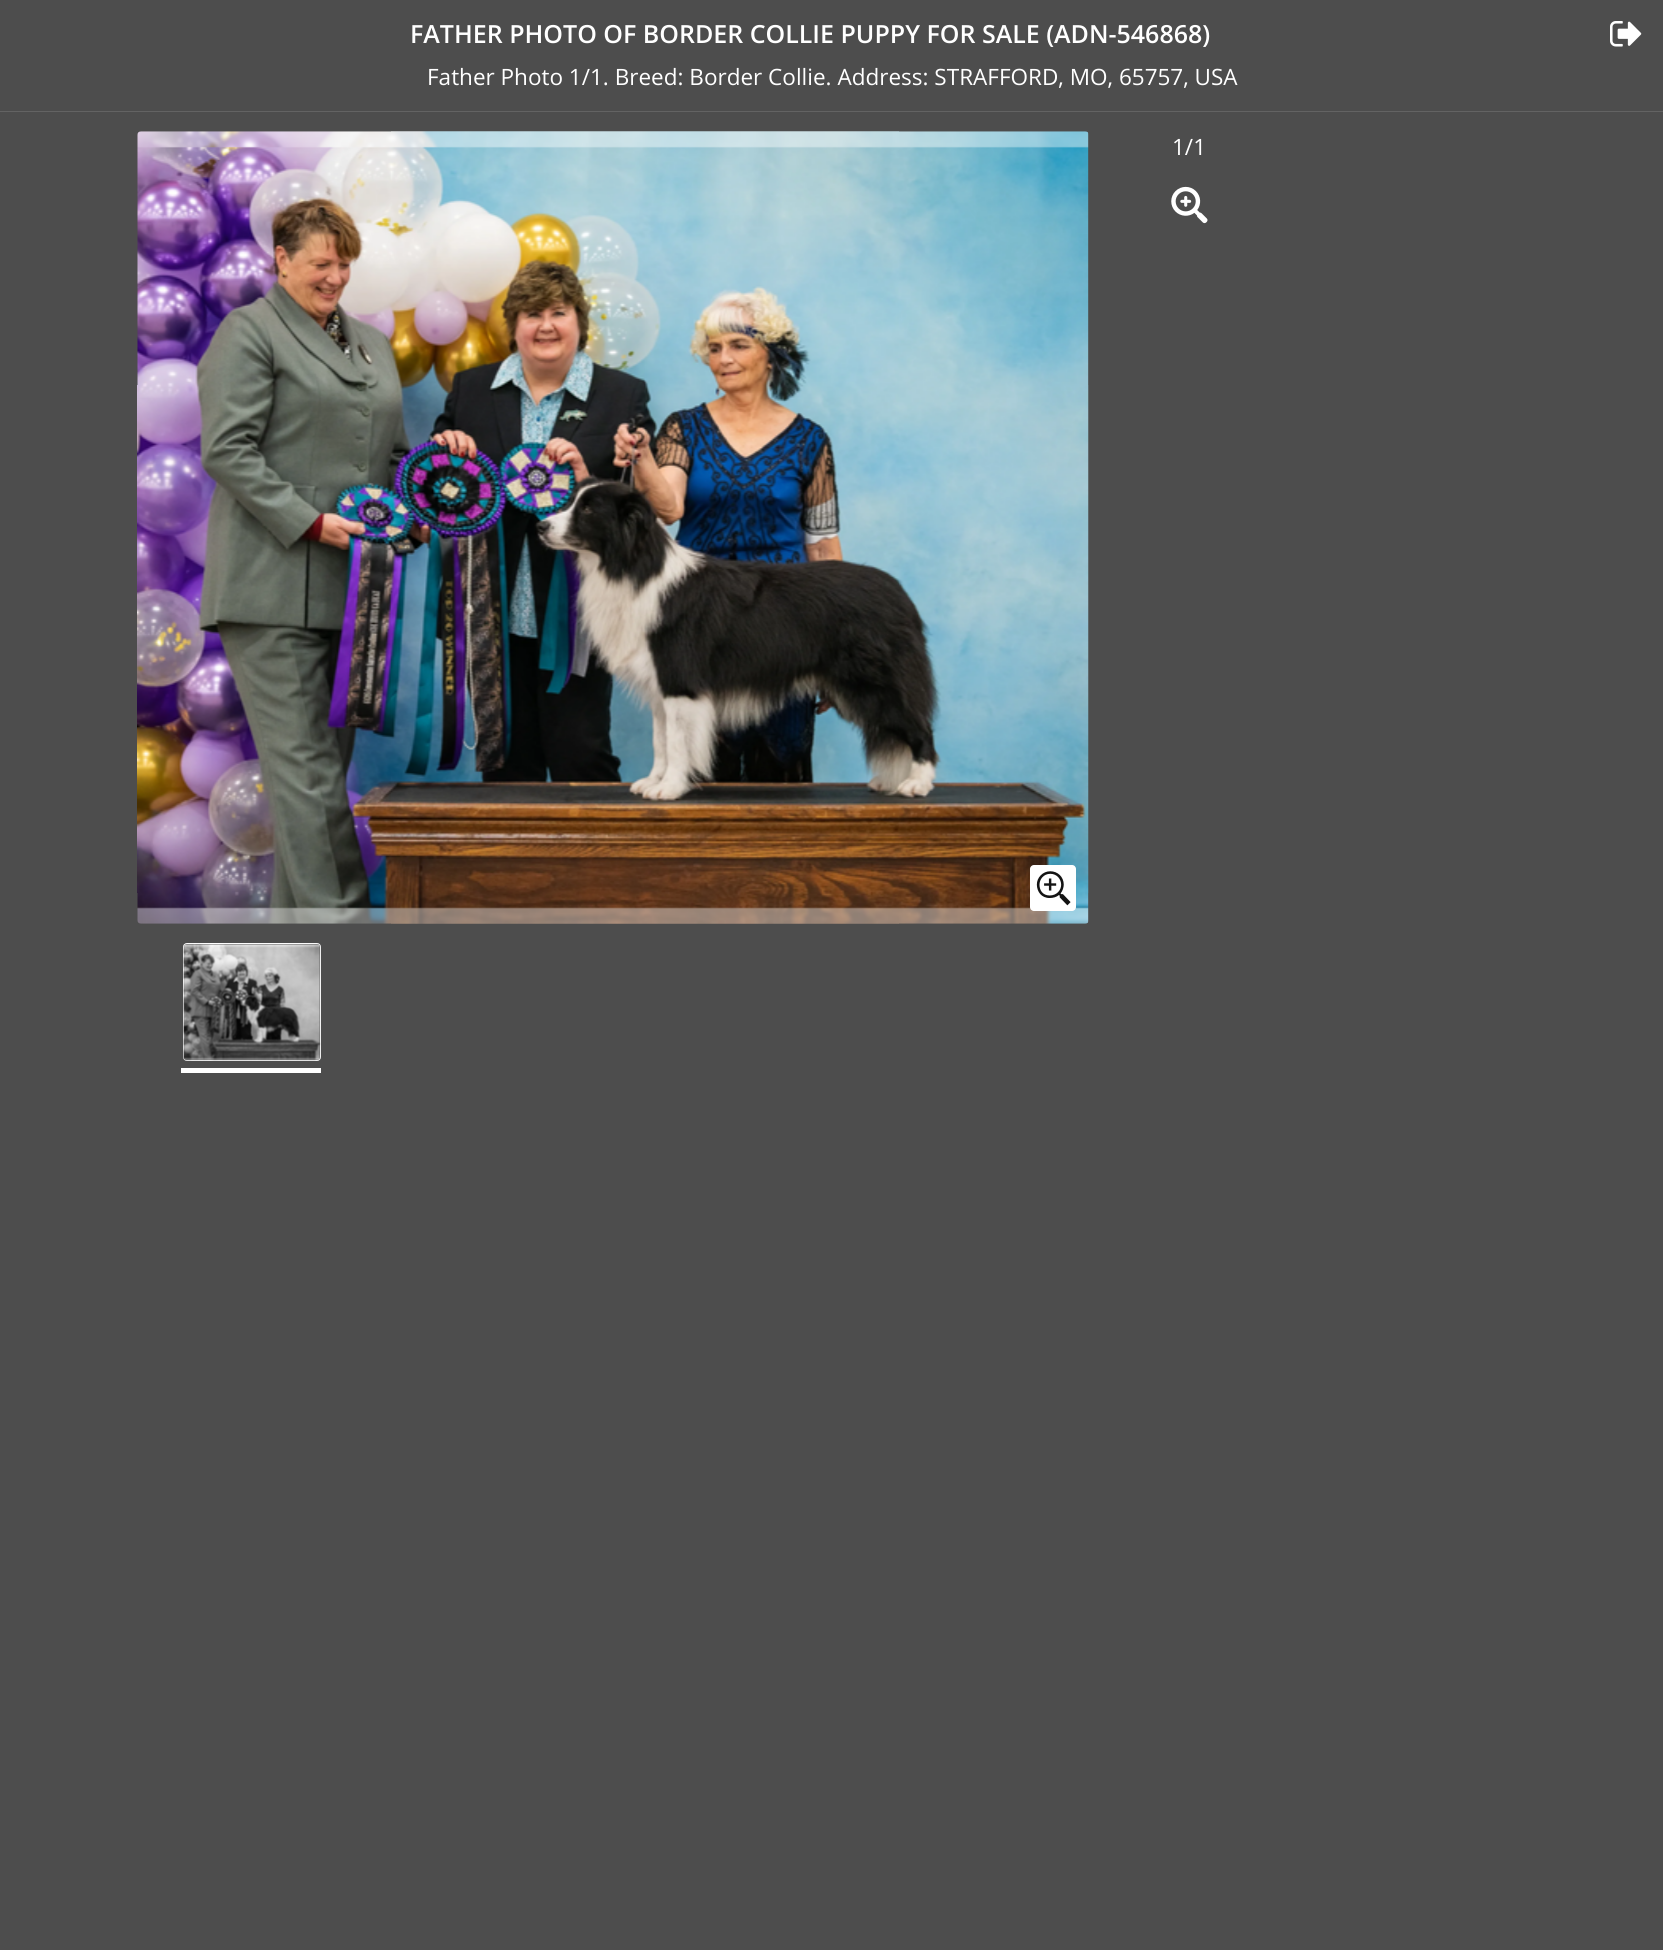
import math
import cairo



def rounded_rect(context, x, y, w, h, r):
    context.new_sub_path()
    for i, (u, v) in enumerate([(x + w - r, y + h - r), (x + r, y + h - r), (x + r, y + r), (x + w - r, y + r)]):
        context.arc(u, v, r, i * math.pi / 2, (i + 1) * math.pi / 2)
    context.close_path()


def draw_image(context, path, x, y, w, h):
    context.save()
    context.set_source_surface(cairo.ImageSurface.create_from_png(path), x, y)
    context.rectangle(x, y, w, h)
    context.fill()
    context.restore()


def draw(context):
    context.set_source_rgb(77 / 255, 77 / 255, 77 / 255)
    context.paint()
    context.set_source_rgb(99 / 255, 99 / 255, 99 / 255)
    context.rectangle(0, 111, 1663, 1)
    context.fill()
    draw_image(context, "images/1.png", 1610, 21, 32, 26)
    draw_image(context, "images/2.png", 137, 131, 952, 793)
    context.set_source_rgb(1, 1, 1)
    rounded_rect(context, 1030, 865, 46, 46, 4)
    context.fill()
    draw_image(context, "images/3.png", 1036, 871, 35, 35)
    draw_image(context, "images/4.png", 1171, 186, 37, 38)
    rounded_rect(context, 183.5, 943.5, 137, 117, 3.5)
    context.set_line_width(1)
    context.stroke()
    draw_image(context, "images/5.png", 183, 943, 138, 118)
    context.rectangle(181, 1068, 140, 5)
    context.fill()
    context.select_font_face("Open Sans SemiBold")
    context.set_font_size(25)
    context.move_to(410, 43)
    context.show_text("FATHER PHOTO OF BORDER COLLIE PUPPY FOR SALE (ADN-546868)")
    context.select_font_face("Open Sans")
    context.set_font_size(22.5)
    context.move_to(427, 85)
    context.show_text("Father Photo 1/1. Breed: Border Collie. Address: STRAFFORD, MO, 65757, USA")
    context.move_to(1172, 155)
    context.show_text("1/1")


surface = cairo.ImageSurface(cairo.Format.RGB24, 1663, 1950)
context = cairo.Context(surface)
options = cairo.FontOptions()
options.set_hint_metrics(cairo.HintMetrics.OFF)
options.set_hint_style(cairo.HintStyle.NONE)
context.set_font_options(options)
context.set_miter_limit(4)
draw(context)
surface.write_to_png("out.png")
